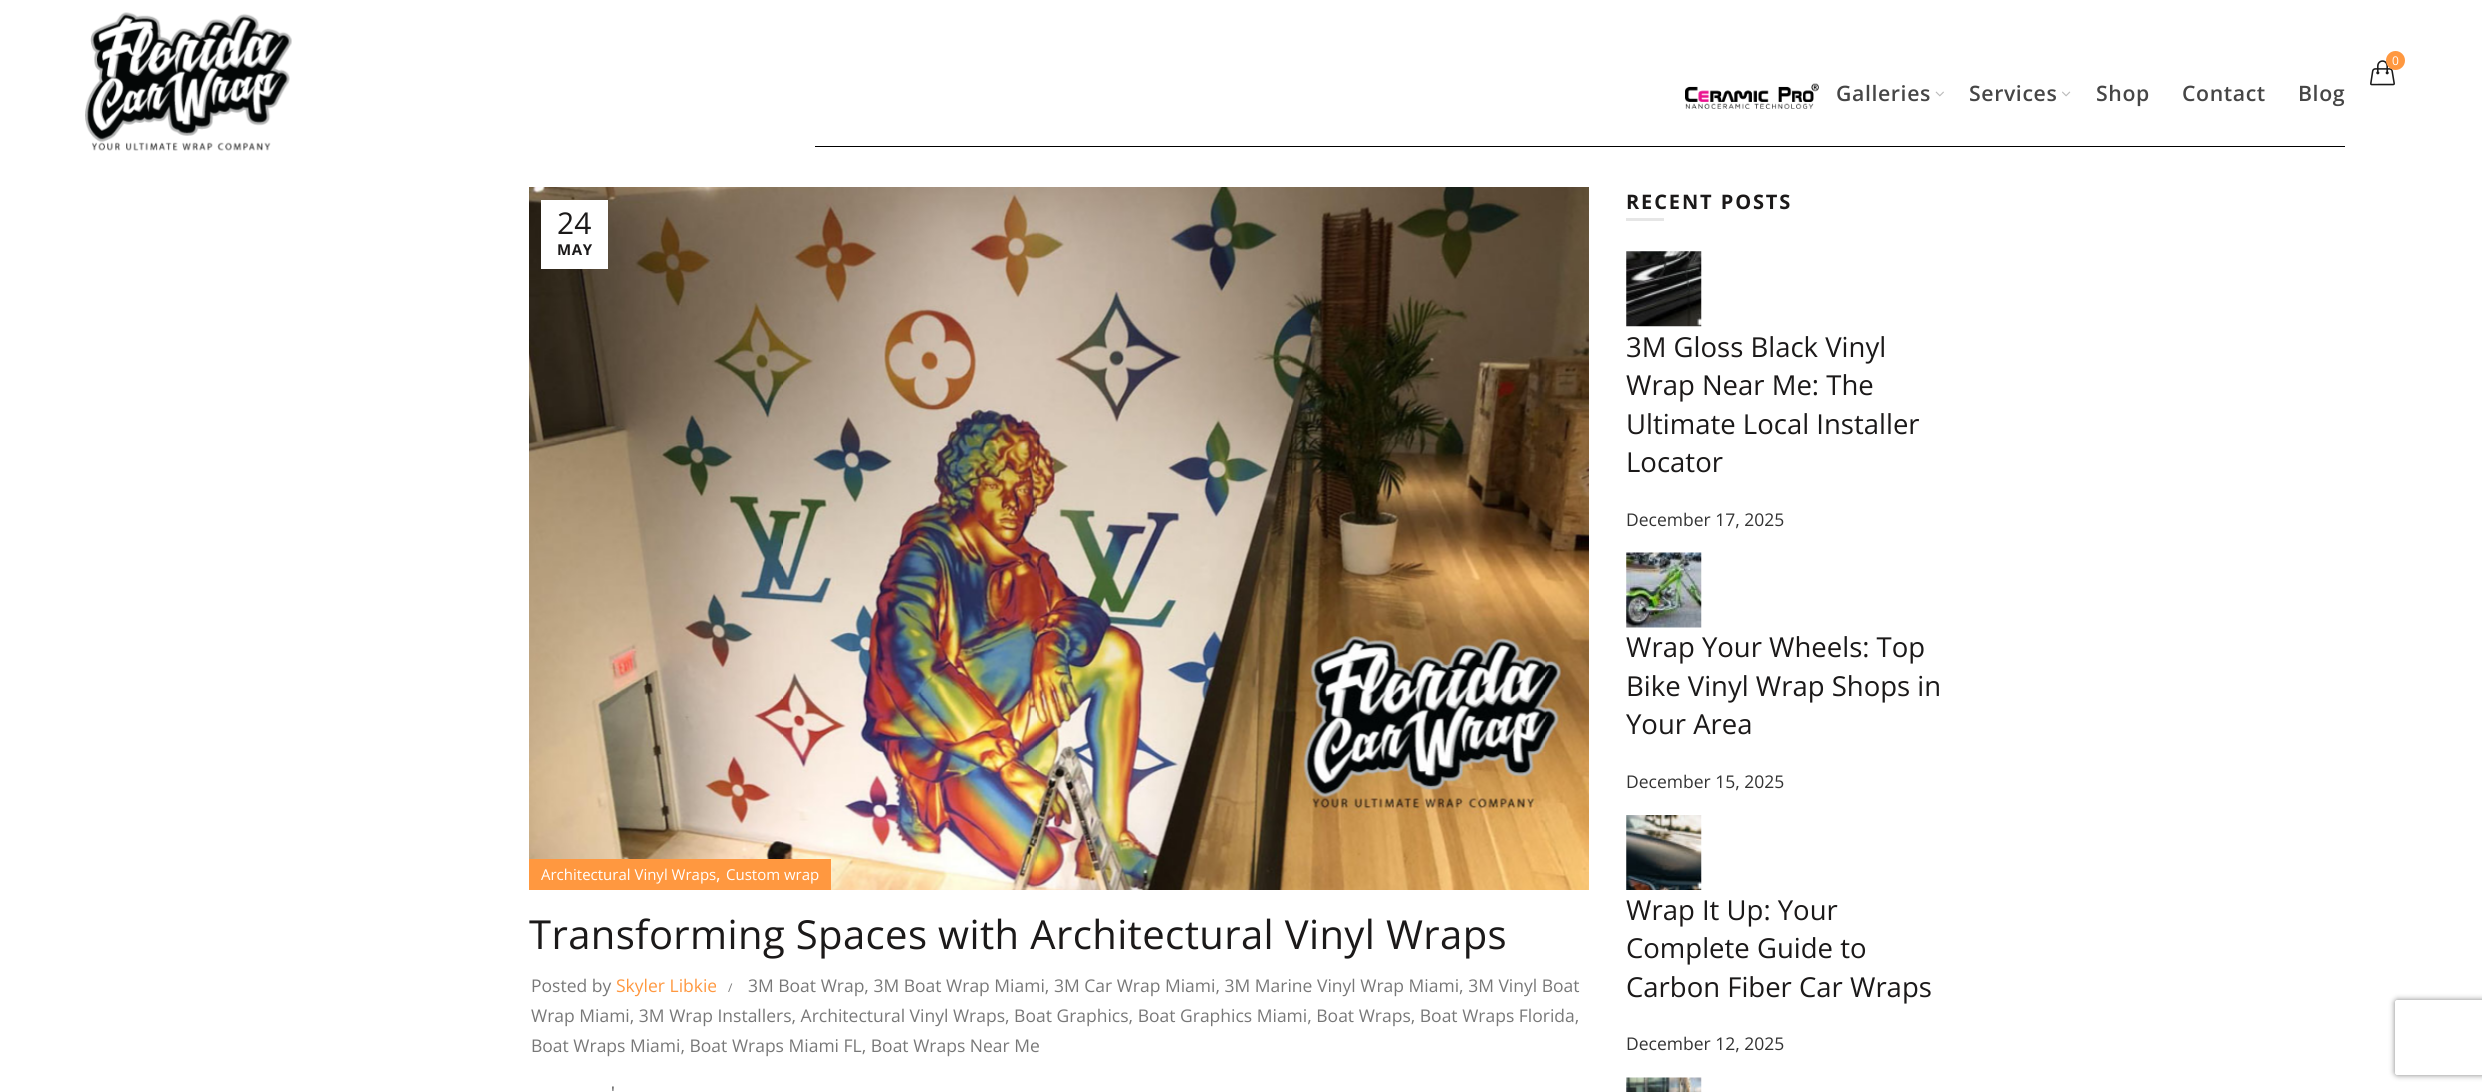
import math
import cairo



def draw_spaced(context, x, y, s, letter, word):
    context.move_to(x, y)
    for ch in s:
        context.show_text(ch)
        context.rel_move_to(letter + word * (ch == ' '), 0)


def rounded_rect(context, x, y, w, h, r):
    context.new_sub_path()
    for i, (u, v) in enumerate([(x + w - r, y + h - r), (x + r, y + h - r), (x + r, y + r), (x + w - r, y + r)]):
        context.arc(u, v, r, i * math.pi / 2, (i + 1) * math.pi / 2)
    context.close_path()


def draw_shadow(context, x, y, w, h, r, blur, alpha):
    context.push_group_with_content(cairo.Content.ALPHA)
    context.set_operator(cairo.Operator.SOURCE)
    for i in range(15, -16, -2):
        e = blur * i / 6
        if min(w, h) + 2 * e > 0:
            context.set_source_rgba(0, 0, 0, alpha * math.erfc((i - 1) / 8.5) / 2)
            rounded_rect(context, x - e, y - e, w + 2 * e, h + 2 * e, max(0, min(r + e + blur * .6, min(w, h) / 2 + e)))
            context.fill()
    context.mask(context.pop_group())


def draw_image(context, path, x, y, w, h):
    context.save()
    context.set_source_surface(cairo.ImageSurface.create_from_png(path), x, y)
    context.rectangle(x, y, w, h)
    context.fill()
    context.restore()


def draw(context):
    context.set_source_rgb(1, 1, 1)
    context.paint()
    draw_image(context, "images/1.png", 85, 12, 207, 139)
    draw_image(context, "images/2.png", 2370, 60, 25, 26)
    context.set_source_rgb(1, 152 / 255, 64 / 255)
    context.arc(2395.5, 60.5, 9.5, 0, 2 * math.pi)
    context.fill()
    context.set_source_rgb(0, 0, 0)
    context.rectangle(815, 146, 1530, 1)
    context.fill()
    draw_image(context, "images/3.png", 1685, 83, 134, 26)
    draw_image(context, "images/4.png", 1935, 91, 9, 6)
    draw_image(context, "images/5.png", 2062, 91, 9, 6)
    draw_image(context, "images/6.png", 529, 187, 1060, 703)
    context.set_source_rgb(1, 1, 1)
    context.rectangle(541, 200, 67, 69)
    context.fill()
    context.set_source_rgb(1, 152 / 255, 64 / 255)
    context.rectangle(529, 859, 302, 31)
    context.fill()
    context.set_source_rgb(230 / 255, 230 / 255, 230 / 255)
    context.rectangle(1626, 218, 38, 3)
    context.fill()
    draw_image(context, "images/7.png", 1626, 251, 76, 76)
    draw_image(context, "images/8.png", 1626, 552, 76, 76)
    draw_image(context, "images/9.png", 1626, 815, 76, 75)
    draw_image(context, "images/10.png", 1626, 1077, 76, 15)
    context.save()
    context.set_fill_rule(cairo.FillRule.EVEN_ODD)
    context.new_path()
    context.move_to(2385, 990)
    context.line_to(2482, 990)
    context.line_to(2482, 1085)
    context.line_to(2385, 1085)
    context.close_path()
    context.move_to(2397.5, 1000)
    context.line_to(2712.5, 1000)
    context.curve_to(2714, 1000, 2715, 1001, 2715, 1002.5)
    context.line_to(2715, 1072.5)
    context.curve_to(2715, 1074, 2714, 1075, 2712.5, 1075)
    context.line_to(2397.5, 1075)
    context.curve_to(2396, 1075, 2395, 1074, 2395, 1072.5)
    context.line_to(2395, 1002.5)
    context.curve_to(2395, 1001, 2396, 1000, 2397.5, 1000)
    context.close_path()
    context.clip()
    context.set_source_rgb(128 / 255, 128 / 255, 128 / 255)
    draw_shadow(context, 2395, 1000, 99, 75, 2.5, 3, 1)
    context.restore()
    context.select_font_face("Open Sans")
    context.set_font_size(12)
    context.set_source_rgb(1, 1, 1)
    context.move_to(2392, 65)
    context.show_text("0")
    context.select_font_face("Open Sans SemiBold")
    context.set_font_size(21.25)
    context.set_source_rgb(70 / 255, 70 / 255, 70 / 255)
    draw_spaced(context, 1836, 101, "Galleries", 0.6, 0)
    draw_spaced(context, 1969, 101, "Services", 0.6, 0)
    draw_spaced(context, 2096, 101, "Shop", 0.6, 0)
    draw_spaced(context, 2182, 101, "Contact", 0.6, 0)
    draw_spaced(context, 2298, 101, "Blog", 0.6, 0)
    context.select_font_face("Open Sans")
    context.set_font_size(30)
    context.set_source_rgb(27 / 255, 25 / 255, 25 / 255)
    context.move_to(557, 234)
    context.show_text("24")
    context.select_font_face("Open Sans", cairo.FontSlant.NORMAL, cairo.FontWeight.BOLD)
    context.set_font_size(15)
    draw_spaced(context, 557, 255, "MAY", 0.6, 0)
    context.select_font_face("Open Sans")
    context.set_source_rgb(1, 1, 1)
    context.move_to(541, 880)
    context.show_text("Architectural Vinyl Wraps")
    context.set_font_size(17.5)
    context.move_to(716, 880)
    context.show_text(",")
    context.set_font_size(15)
    context.move_to(726, 880)
    context.show_text("Custom wrap")
    context.set_font_size(40)
    context.set_source_rgb(27 / 255, 25 / 255, 25 / 255)
    draw_spaced(context, 529, 949, "Transforming Spaces with Architectural Vinyl Wraps", 0.38, 0)
    context.set_font_size(17.5)
    context.set_source_rgb(120 / 255, 120 / 255, 120 / 255)
    context.move_to(531, 992)
    context.show_text("Posted by")
    context.set_source_rgb(1, 152 / 255, 64 / 255)
    context.move_to(616, 992)
    context.show_text("Skyler Libkie")
    context.set_font_size(12)
    context.set_source_rgb(120 / 255, 120 / 255, 120 / 255)
    context.move_to(728, 992)
    context.show_text("/")
    context.set_font_size(17.5)
    context.move_to(748, 992)
    context.show_text("3M Boat Wrap, 3M Boat Wrap Miami, 3M Car Wrap Miami, 3M Marine Vinyl Wrap Miami, 3M Vinyl Boat")
    context.move_to(531, 1022)
    context.show_text("Wrap Miami, 3M Wrap Installers, Architectural Vinyl Wraps, Boat Graphics, Boat Graphics Miami, Boat Wraps, Boat Wraps Florida,")
    context.move_to(531, 1052)
    context.show_text("Boat Wraps Miami, Boat Wraps Miami FL, Boat Wraps Near Me")
    context.set_source_rgb(76 / 255, 76 / 255, 76 / 255)
    context.move_to(611, 1099)
    context.show_text("'")
    context.select_font_face("Open Sans", cairo.FontSlant.NORMAL, cairo.FontWeight.BOLD)
    context.set_font_size(20)
    context.set_source_rgb(27 / 255, 25 / 255, 25 / 255)
    draw_spaced(context, 1626, 209, "RECENT POSTS", 1.9, 0)
    context.select_font_face("Open Sans")
    context.set_font_size(27.5)
    context.move_to(1626, 357)
    context.show_text("3M Gloss Black Vinyl")
    context.move_to(1626, 395)
    context.show_text("Wrap Near Me: The")
    context.move_to(1626, 434)
    context.show_text("Ultimate Local Installer")
    context.move_to(1626, 472)
    context.show_text("Locator")
    context.set_font_size(17.5)
    context.set_source_rgb(51 / 255, 51 / 255, 51 / 255)
    context.move_to(1626, 526)
    context.show_text("December 17, 2025")
    context.set_font_size(27.5)
    context.set_source_rgb(27 / 255, 25 / 255, 25 / 255)
    context.move_to(1626, 657)
    context.show_text("Wrap Your Wheels: Top")
    context.move_to(1626, 696)
    context.show_text("Bike Vinyl Wrap Shops in")
    context.move_to(1626, 734)
    context.show_text("Your Area")
    context.set_font_size(17.5)
    context.set_source_rgb(51 / 255, 51 / 255, 51 / 255)
    context.move_to(1626, 788)
    context.show_text("December 15, 2025")
    context.set_font_size(27.5)
    context.set_source_rgb(27 / 255, 25 / 255, 25 / 255)
    context.move_to(1626, 920)
    context.show_text("Wrap It Up: Your")
    context.move_to(1626, 958)
    context.show_text("Complete Guide to")
    context.move_to(1626, 997)
    context.show_text("Carbon Fiber Car Wraps")
    context.set_font_size(17.5)
    context.set_source_rgb(51 / 255, 51 / 255, 51 / 255)
    context.move_to(1626, 1050)
    context.show_text("December 12, 2025")


surface = cairo.ImageSurface(cairo.Format.RGB24, 2482, 1092)
context = cairo.Context(surface)
options = cairo.FontOptions()
options.set_hint_metrics(cairo.HintMetrics.OFF)
options.set_hint_style(cairo.HintStyle.NONE)
context.set_font_options(options)
context.set_miter_limit(4)
draw(context)
surface.write_to_png("out.png")
